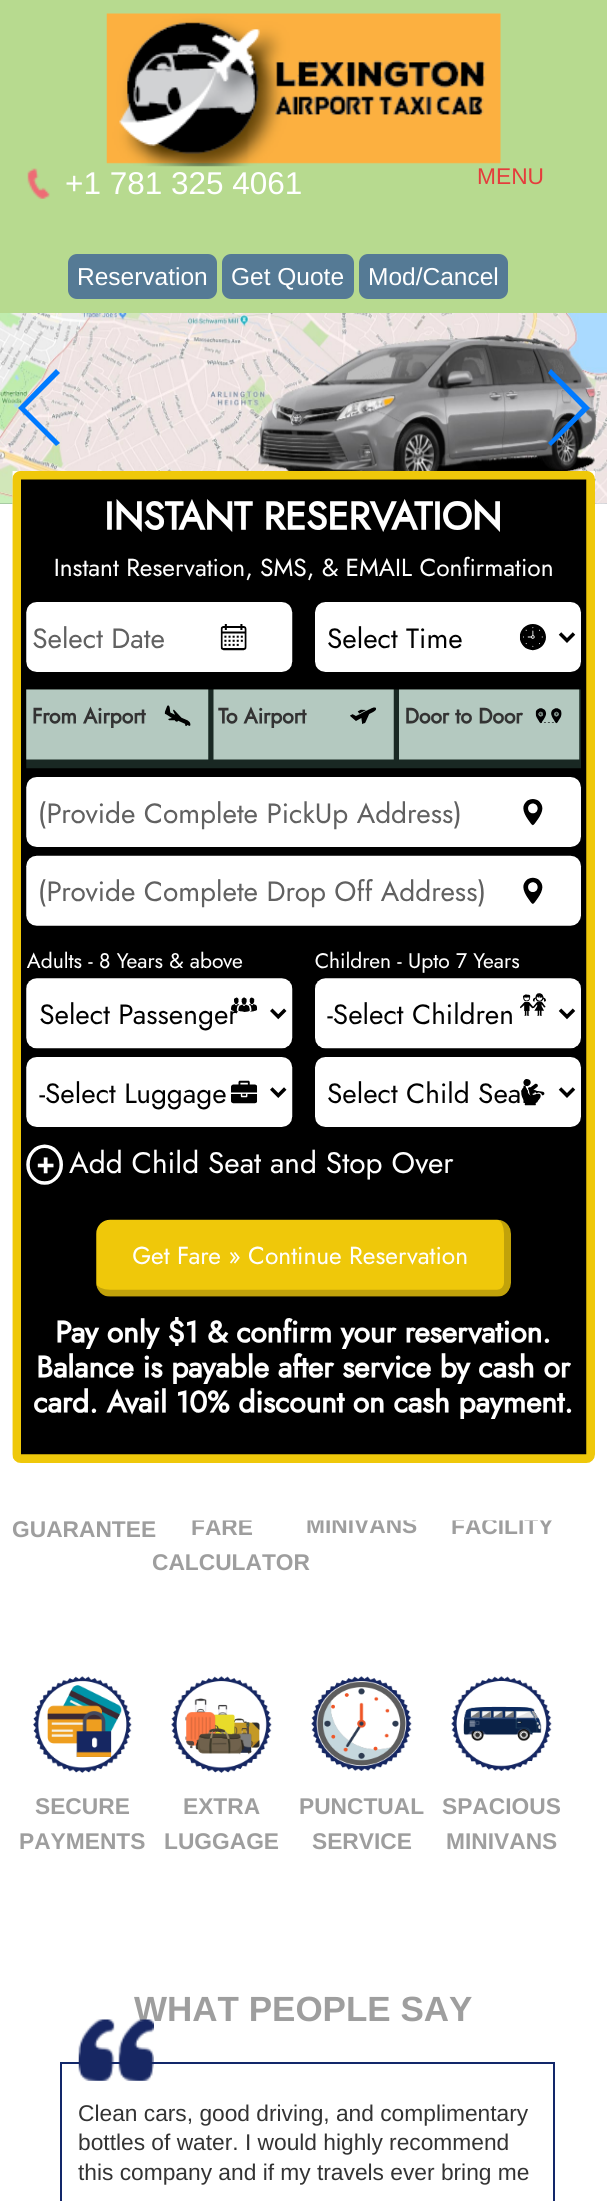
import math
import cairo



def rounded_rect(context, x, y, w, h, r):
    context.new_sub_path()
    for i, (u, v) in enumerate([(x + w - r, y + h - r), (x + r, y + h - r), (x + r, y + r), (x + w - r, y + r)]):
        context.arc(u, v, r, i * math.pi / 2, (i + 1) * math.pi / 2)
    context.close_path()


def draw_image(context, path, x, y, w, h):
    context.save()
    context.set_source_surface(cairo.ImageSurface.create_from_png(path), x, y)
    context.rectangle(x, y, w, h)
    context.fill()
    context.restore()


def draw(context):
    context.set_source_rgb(1, 1, 1)
    context.paint()
    context.set_source_rgb(183 / 255, 218 / 255, 143 / 255)
    context.rectangle(0, 0, 607, 313)
    context.fill()
    draw_image(context, "images/1.png", 106, 13, 395, 154)
    draw_image(context, "images/2.png", 27, 168, 23, 31)
    context.set_source_rgb(85 / 255, 122 / 255, 149 / 255)
    rounded_rect(context, 68, 254, 149, 45, 9)
    context.fill()
    rounded_rect(context, 222, 254, 132, 45, 9)
    context.fill()
    rounded_rect(context, 359, 254, 149, 45, 9)
    context.fill()
    draw_image(context, "images/3.png", 0, 503, 607, 1)
    draw_image(context, "images/4.png", 0, 313, 607, 191)
    context.set_source_rgb(0, 122 / 255, 1)
    context.new_path()
    context.move_to(18, 408)
    context.line_to(56, 369)
    context.line_to(60, 373)
    context.line_to(25, 408)
    context.line_to(60, 443)
    context.line_to(56, 446)
    context.close_path()
    context.fill()
    context.new_path()
    context.move_to(590, 408)
    context.line_to(551, 446)
    context.line_to(548, 443)
    context.line_to(582, 408)
    context.line_to(548, 373)
    context.line_to(551, 369)
    context.close_path()
    context.fill()
    draw_image(context, "images/6.png", 33, 1676, 99, 97)
    draw_image(context, "images/7.png", 171, 1676, 101, 97)
    draw_image(context, "images/8.png", 311, 1676, 101, 95)
    draw_image(context, "images/9.png", 451, 1676, 101, 95)
    context.rectangle(61, 2063, 493, 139)
    context.set_source_rgb(18 / 255, 39 / 255, 106 / 255)
    context.stroke()
    context.select_font_face("Liberation Sans")
    context.set_font_size(31.5)
    context.set_source_rgb(1, 1, 1)
    context.move_to(65, 194)
    context.show_text("+1 781 325 4061")
    context.set_font_size(22.75)
    context.set_source_rgb(229 / 255, 60 / 255, 60 / 255)
    context.move_to(477, 184)
    context.show_text("MENU")
    context.set_font_size(24.5)
    context.set_source_rgb(1, 1, 1)
    context.move_to(77, 285)
    context.show_text("Reservation")
    context.move_to(231, 285)
    context.show_text("Get Quote")
    context.move_to(368, 285)
    context.show_text("Mod/Cancel")
    context.select_font_face("Liberation Sans", cairo.FontSlant.NORMAL, cairo.FontWeight.BOLD)
    context.set_font_size(22.75)
    context.set_source_rgb(158 / 255, 158 / 255, 158 / 255)
    context.move_to(12, 1537)
    context.show_text("GUARANTEE")
    context.move_to(191, 1535)
    context.show_text("FARE")
    context.move_to(152, 1570)
    context.show_text("CALCULATOR")
    context.move_to(306, 1533)
    context.show_text("MINIVANS")
    context.move_to(451, 1534)
    context.show_text("FACILITY")
    draw_image(context, "images/5.png", 12, 470, 583, 1051)
    context.move_to(35, 1814)
    context.show_text("SECURE")
    context.move_to(19, 1849)
    context.show_text("PAYMENTS")
    context.move_to(183, 1814)
    context.show_text("EXTRA")
    context.move_to(164, 1849)
    context.show_text("LUGGAGE")
    context.move_to(299, 1814)
    context.show_text("PUNCTUAL")
    context.move_to(312, 1849)
    context.show_text("SERVICE")
    context.move_to(442, 1814)
    context.show_text("SPACIOUS")
    context.move_to(446, 1849)
    context.show_text("MINIVANS")
    context.set_font_size(35)
    context.move_to(134, 2021)
    context.show_text("WHAT PEOPLE SAY")
    draw_image(context, "images/10.png", 78, 2019, 76, 62)
    context.select_font_face("Liberation Sans")
    context.set_font_size(22.75)
    context.set_source_rgb(51 / 255, 51 / 255, 51 / 255)
    context.move_to(78, 2121)
    context.show_text("Clean cars, good driving, and complimentary")
    context.move_to(78, 2150)
    context.show_text("bottles of water. I would highly recommend")
    context.move_to(78, 2180)
    context.show_text("this company and if my travels ever bring me")


surface = cairo.ImageSurface(cairo.Format.RGB24, 607, 2201)
context = cairo.Context(surface)
options = cairo.FontOptions()
options.set_hint_metrics(cairo.HintMetrics.OFF)
options.set_hint_style(cairo.HintStyle.NONE)
context.set_font_options(options)
context.set_miter_limit(4)
draw(context)
surface.write_to_png("out.png")
